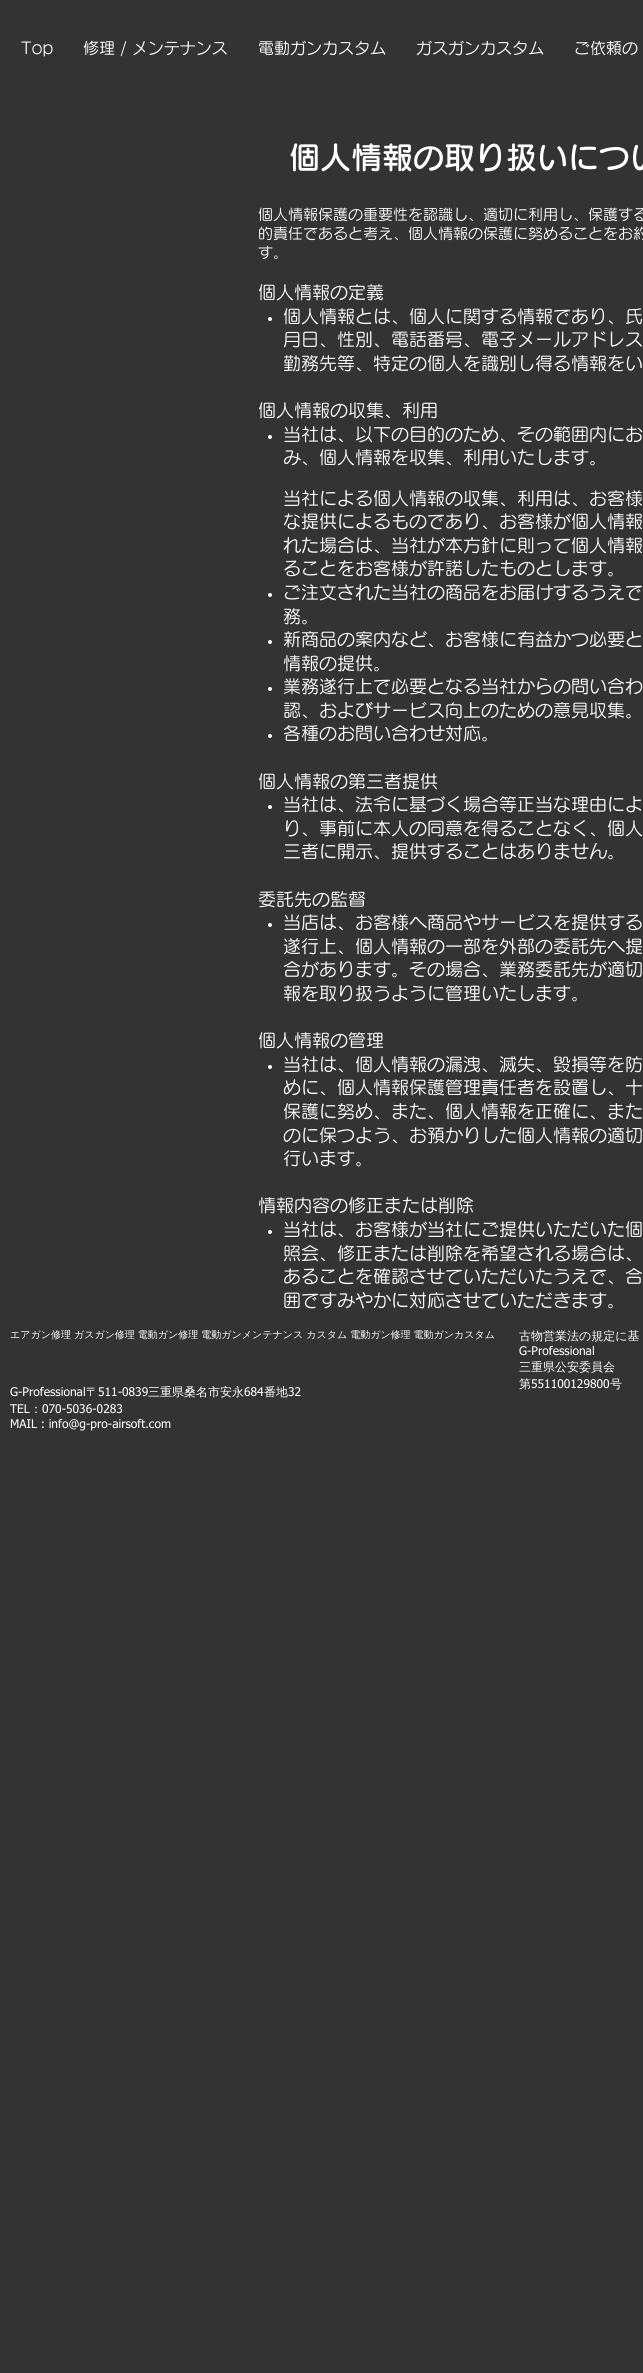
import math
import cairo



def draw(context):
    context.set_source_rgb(51 / 255, 51 / 255, 51 / 255)
    context.paint()
    context.set_source_rgb(1, 1, 1)
    context.arc(270, 319, 2, 0, 2 * math.pi)
    context.fill()
    context.arc(270, 437, 2, 0, 2 * math.pi)
    context.fill()
    context.arc(270, 595, 2, 0, 2 * math.pi)
    context.fill()
    context.arc(270, 642, 2, 0, 2 * math.pi)
    context.fill()
    context.arc(270, 689, 2, 0, 2 * math.pi)
    context.fill()
    context.arc(270, 736, 2, 0, 2 * math.pi)
    context.fill()
    context.arc(270, 807, 2, 0, 2 * math.pi)
    context.fill()
    context.arc(270, 925, 2, 0, 2 * math.pi)
    context.fill()
    context.arc(270, 1067, 2, 0, 2 * math.pi)
    context.fill()
    context.arc(270, 1232, 2, 0, 2 * math.pi)
    context.fill()
    context.select_font_face("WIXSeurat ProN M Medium")
    context.set_font_size(16)
    context.move_to(21, 54)
    context.show_text("Top")
    context.move_to(83, 54)
    context.show_text("修理 / メンテナンス")
    context.move_to(258, 54)
    context.show_text("電動ガンカスタム")
    context.move_to(416, 54)
    context.show_text("ガスガンカスタム")
    context.move_to(574, 54)
    context.show_text("ご依頼の")
    context.select_font_face("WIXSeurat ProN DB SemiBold")
    context.set_font_size(31)
    context.move_to(289, 169)
    context.show_text("個人情報の取り扱いについ")
    context.select_font_face("WIXSeurat ProN M Medium")
    context.set_font_size(15)
    context.move_to(258, 220)
    context.show_text("個人情報保護の重要性を認識し、適切に利用し、保護する")
    context.move_to(258, 239)
    context.show_text("的責任であると考え、個人情報の保護に努めることをお約")
    context.move_to(258, 258)
    context.show_text("す。")
    context.set_font_size(18)
    context.move_to(258, 299)
    context.show_text("個人情報の定義")
    context.move_to(283, 323)
    context.show_text("個人情報とは、個人に関する情報であり、氏")
    context.move_to(283, 346)
    context.show_text("月日、性別、電話番号、電子メールアドレス")
    context.move_to(283, 370)
    context.show_text("勤務先等、特定の個人を識別し得る情報をい")
    context.move_to(258, 417)
    context.show_text("個人情報の収集、利用")
    context.move_to(283, 441)
    context.show_text("当社は、以下の目的のため、その範囲内にお")
    context.move_to(283, 464)
    context.show_text("み、個人情報を収集、利用いたします。")
    context.move_to(283, 505)
    context.show_text("当社による個人情報の収集、利用は、お客様")
    context.move_to(283, 528)
    context.show_text("な提供によるものであり、お客様が個人情報")
    context.move_to(283, 552)
    context.show_text("れた場合は、当社が本方針に則って個人情報")
    context.move_to(283, 575)
    context.show_text("ることをお客様が許諾したものとします。")
    context.move_to(283, 599)
    context.show_text("ご注文された当社の商品をお届けするうえで")
    context.move_to(283, 623)
    context.show_text("務。")
    context.move_to(283, 646)
    context.show_text("新商品の案内など、お客様に有益かつ必要と")
    context.move_to(283, 670)
    context.show_text("情報の提供。")
    context.move_to(283, 693)
    context.show_text("業務遂行上で必要となる当社からの問い合わ")
    context.move_to(283, 717)
    context.show_text("認、およびサービス向上のための意見収集。")
    context.move_to(283, 740)
    context.show_text("各種のお問い合わせ対応。")
    context.move_to(258, 788)
    context.show_text("個人情報の第三者提供")
    context.move_to(283, 811)
    context.show_text("当社は、法令に基づく場合等正当な理由によ")
    context.move_to(283, 835)
    context.show_text("り、事前に本人の同意を得ることなく、個人")
    context.move_to(283, 858)
    context.show_text("三者に開示、提供することはありません。")
    context.move_to(258, 906)
    context.show_text("委託先の監督")
    context.move_to(283, 929)
    context.show_text("当店は、お客様へ商品やサービスを提供する")
    context.move_to(283, 953)
    context.show_text("遂行上、個人情報の一部を外部の委託先へ提")
    context.move_to(283, 976)
    context.show_text("合があります。その場合、業務委託先が適切")
    context.move_to(283, 1000)
    context.show_text("報を取り扱うように管理いたします。")
    context.move_to(258, 1047)
    context.show_text("個人情報の管理")
    context.move_to(283, 1071)
    context.show_text("当社は、個人情報の漏洩、滅失、毀損等を防")
    context.move_to(283, 1094)
    context.show_text("めに、個人情報保護管理責任者を設置し、十")
    context.move_to(283, 1118)
    context.show_text("保護に努め、また、個人情報を正確に、また")
    context.move_to(283, 1142)
    context.show_text("のに保つよう、お預かりした個人情報の適切")
    context.move_to(283, 1165)
    context.show_text("行います。")
    context.move_to(258, 1212)
    context.show_text("情報内容の修正または削除")
    context.move_to(283, 1236)
    context.show_text("当社は、お客様が当社にご提供いただいた個")
    context.move_to(283, 1260)
    context.show_text("照会、修正または削除を希望される場合は、")
    context.move_to(283, 1283)
    context.show_text("あることを確認させていただいたうえで、合")
    context.move_to(283, 1307)
    context.show_text("囲ですみやかに対応させていただきます。")
    context.select_font_face("WenQuanYi Zen Hei Medium")
    context.set_font_size(10)
    context.move_to(10, 1338)
    context.show_text("エアガン修理 ガスガン修理 電動ガン修理 電動ガンメンテナンス カスタム 電動ガン修理 電動ガンカスタム")
    context.set_font_size(12)
    context.move_to(519, 1340)
    context.show_text("古物営業法の規定に基")
    context.select_font_face("tahoma")
    context.move_to(519, 1355)
    context.show_text("G-Professional")
    context.select_font_face("WenQuanYi Zen Hei Medium")
    context.move_to(519, 1371)
    context.show_text("三重県公安委員会")
    context.move_to(519, 1388)
    context.show_text("第")
    context.select_font_face("tahoma")
    context.move_to(531, 1388)
    context.show_text("551100129800")
    context.select_font_face("WenQuanYi Zen Hei Medium")
    context.move_to(610, 1388)
    context.show_text("号")
    context.select_font_face("tahoma")
    context.move_to(10, 1396)
    context.show_text("G-Professional")
    context.select_font_face("WenQuanYi Zen Hei Medium")
    context.move_to(86, 1396)
    context.show_text("〒")
    context.select_font_face("tahoma")
    context.move_to(98, 1396)
    context.show_text("511-0839")
    context.select_font_face("WenQuanYi Zen Hei Medium")
    context.move_to(148, 1396)
    context.show_text("三重県桑名市安永")
    context.select_font_face("tahoma")
    context.move_to(244, 1396)
    context.show_text("684")
    context.select_font_face("WenQuanYi Zen Hei Medium")
    context.move_to(264, 1396)
    context.show_text("番地")
    context.select_font_face("tahoma")
    context.move_to(288, 1396)
    context.show_text("32")
    context.move_to(10, 1413)
    context.show_text("TEL")
    context.select_font_face("WenQuanYi Zen Hei Medium")
    context.move_to(30, 1413)
    context.show_text("：")
    context.select_font_face("tahoma")
    context.move_to(42, 1413)
    context.show_text("070-5036-0283")
    context.move_to(10, 1428)
    context.show_text("MAIL : info@g-pro-airsoft.com")


surface = cairo.ImageSurface(cairo.Format.RGB24, 643, 2373)
context = cairo.Context(surface)
options = cairo.FontOptions()
options.set_hint_metrics(cairo.HintMetrics.OFF)
options.set_hint_style(cairo.HintStyle.NONE)
context.set_font_options(options)
context.set_miter_limit(4)
draw(context)
surface.write_to_png("out.png")
